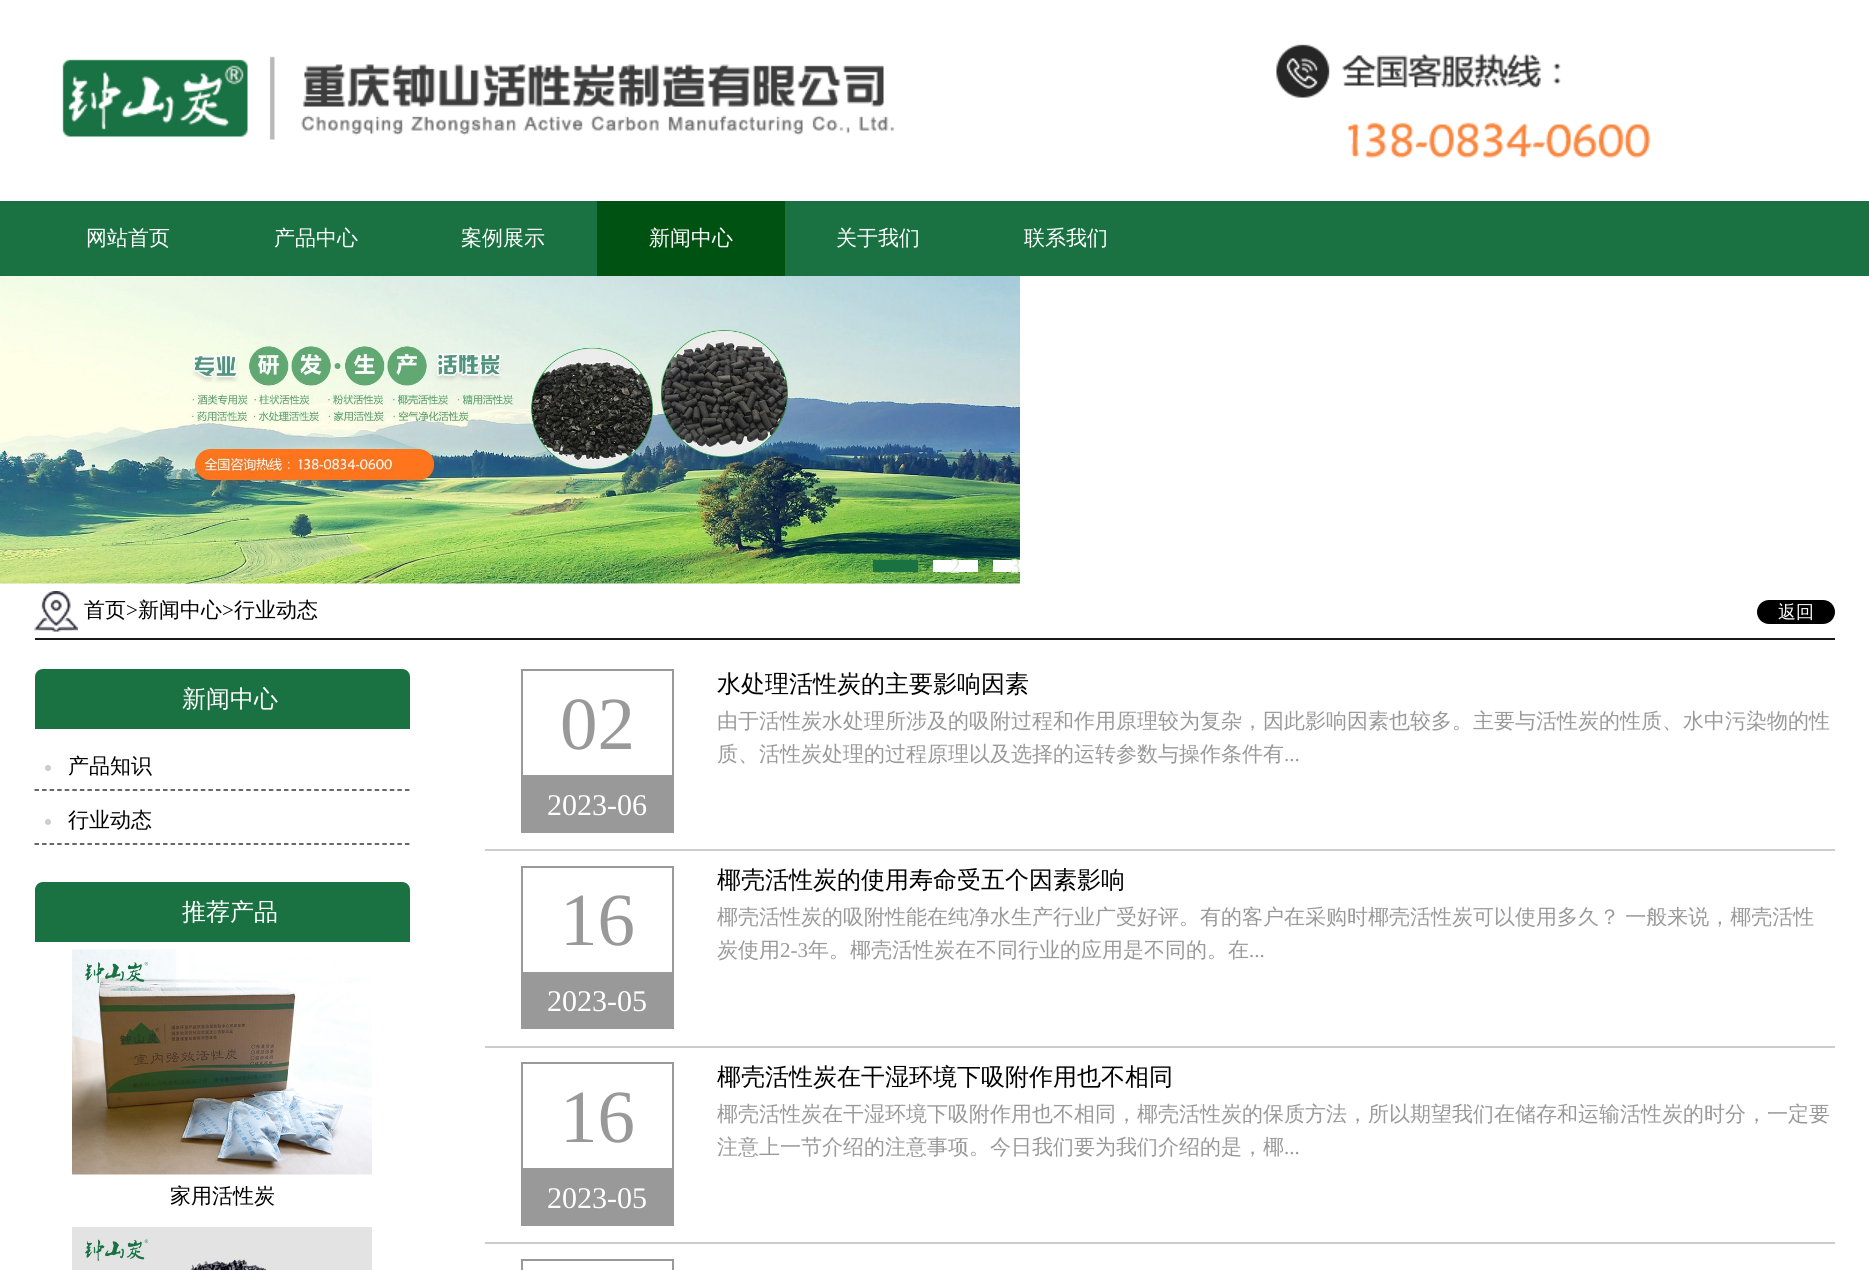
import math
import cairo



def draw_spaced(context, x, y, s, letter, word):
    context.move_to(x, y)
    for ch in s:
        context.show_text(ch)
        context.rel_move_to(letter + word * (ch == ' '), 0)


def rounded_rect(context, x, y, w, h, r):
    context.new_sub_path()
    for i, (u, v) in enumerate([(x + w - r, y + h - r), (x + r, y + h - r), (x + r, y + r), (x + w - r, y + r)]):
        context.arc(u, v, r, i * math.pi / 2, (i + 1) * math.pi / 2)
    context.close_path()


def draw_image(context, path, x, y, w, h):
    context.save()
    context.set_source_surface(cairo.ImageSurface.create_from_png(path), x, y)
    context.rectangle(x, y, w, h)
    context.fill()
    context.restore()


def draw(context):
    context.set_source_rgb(1, 1, 1)
    context.paint()
    draw_image(context, "images/1.png", 62, 44, 1589, 114)
    context.set_source_rgb(26 / 255, 114 / 255, 66 / 255)
    context.rectangle(0, 201, 1869, 75)
    context.fill()
    context.set_source_rgb(0, 82 / 255, 18 / 255)
    context.rectangle(597, 201, 188, 75)
    context.fill()
    draw_image(context, "images/2.png", 0, 276, 1020, 308)
    context.set_source_rgb(26 / 255, 114 / 255, 66 / 255)
    context.rectangle(873, 560, 45, 12)
    context.fill()
    context.set_source_rgb(1, 1, 1)
    context.rectangle(933, 560, 45, 12)
    context.fill()
    context.rectangle(993, 560, 27, 12)
    context.fill()
    draw_image(context, "images/3.png", 34, 591, 44, 41)
    context.set_source_rgb(25 / 255, 25 / 255, 25 / 255)
    context.rectangle(35, 638, 1800, 2)
    context.fill()
    context.set_source_rgb(0, 0, 0)
    rounded_rect(context, 1757, 600, 78, 24, 12)
    context.fill()
    context.set_source_rgb(26 / 255, 114 / 255, 66 / 255)
    context.new_path()
    context.move_to(43, 669)
    context.line_to(402, 669)
    context.curve_to(406.5, 669, 410, 672.5, 410, 677)
    context.line_to(410, 729)
    context.line_to(35, 729)
    context.line_to(35, 677)
    context.curve_to(35, 672.5, 38.5, 669, 43, 669)
    context.close_path()
    context.fill()
    context.new_path()
    context.move_to(34.5, 790)
    context.line_to(409.5, 790)
    context.set_source_rgb(54 / 255, 54 / 255, 54 / 255)
    context.set_line_width(1.5)
    context.set_dash([4.5, 3.06])
    context.stroke()
    context.set_source_rgb(204 / 255, 204 / 255, 204 / 255)
    context.arc(48, 768, 3, 0, 2 * math.pi)
    context.fill()
    context.new_path()
    context.move_to(34.5, 844)
    context.line_to(409.5, 844)
    context.set_source_rgb(54 / 255, 54 / 255, 54 / 255)
    context.stroke()
    context.set_source_rgb(204 / 255, 204 / 255, 204 / 255)
    context.arc(48, 822, 3, 0, 2 * math.pi)
    context.fill()
    context.set_source_rgb(26 / 255, 114 / 255, 66 / 255)
    context.new_path()
    context.move_to(43, 882)
    context.line_to(402, 882)
    context.curve_to(406.5, 882, 410, 885.5, 410, 890)
    context.line_to(410, 942)
    context.line_to(35, 942)
    context.line_to(35, 890)
    context.curve_to(35, 885.5, 38.5, 882, 43, 882)
    context.close_path()
    context.fill()
    draw_image(context, "images/4.png", 72, 949, 300, 226)
    draw_image(context, "images/5.png", 72, 1227, 300, 43)
    context.set_source_rgb(204 / 255, 204 / 255, 204 / 255)
    context.rectangle(485, 849, 1350, 2)
    context.fill()
    context.rectangle(522, 670, 151, 106)
    context.set_source_rgb(153 / 255, 153 / 255, 153 / 255)
    context.set_line_width(2)
    context.set_dash([])
    context.stroke()
    context.rectangle(521, 777, 153, 56)
    context.fill()
    context.set_source_rgb(204 / 255, 204 / 255, 204 / 255)
    context.rectangle(485, 1046, 1350, 2)
    context.fill()
    context.rectangle(522, 867, 151, 106)
    context.set_source_rgb(153 / 255, 153 / 255, 153 / 255)
    context.stroke()
    context.rectangle(521, 974, 153, 55)
    context.fill()
    context.set_source_rgb(204 / 255, 204 / 255, 204 / 255)
    context.rectangle(485, 1242, 1350, 2)
    context.fill()
    context.rectangle(522, 1063, 151, 106)
    context.set_source_rgb(153 / 255, 153 / 255, 153 / 255)
    context.stroke()
    context.rectangle(521, 1170, 153, 56)
    context.fill()
    context.rectangle(522, 1260, 151, 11)
    context.stroke()
    context.select_font_face("WenQuanYi Zen Hei Medium")
    context.set_font_size(21)
    context.set_source_rgb(1, 1, 1)
    context.move_to(86, 245)
    context.show_text("网站首页")
    context.move_to(274, 245)
    context.show_text("产品中心")
    context.move_to(461, 245)
    context.show_text("案例展示")
    context.move_to(649, 245)
    context.show_text("新闻中心")
    context.move_to(836, 245)
    context.show_text("关于我们")
    context.move_to(1024, 245)
    context.show_text("联系我们")
    context.select_font_face("Liberation Serif")
    context.set_source_rgb(214 / 255, 230 / 255, 208 / 255)
    context.move_to(950, 573)
    context.show_text("2")
    context.move_to(1010, 573)
    context.show_text("3")
    context.select_font_face("WenQuanYi Zen Hei Medium")
    context.set_source_rgb(0, 0, 0)
    context.move_to(84, 617)
    context.show_text("首页")
    context.select_font_face("Liberation Serif")
    context.move_to(126, 617)
    context.show_text(">")
    context.select_font_face("WenQuanYi Zen Hei Medium")
    context.move_to(138, 617)
    context.show_text("新闻中心")
    context.select_font_face("Liberation Serif")
    context.move_to(222, 617)
    context.show_text(">")
    context.select_font_face("WenQuanYi Zen Hei Medium")
    context.move_to(234, 617)
    context.show_text("行业动态")
    context.set_font_size(18)
    context.set_source_rgb(1, 1, 1)
    context.move_to(1778, 618)
    context.show_text("返回")
    context.set_font_size(24)
    context.move_to(182, 707)
    context.show_text("新闻中心")
    context.set_font_size(21)
    context.set_source_rgb(0, 0, 0)
    context.move_to(68, 773)
    context.show_text("产品知识")
    context.move_to(68, 827)
    context.show_text("行业动态")
    context.set_font_size(24)
    context.set_source_rgb(1, 1, 1)
    context.move_to(182, 920)
    context.show_text("推荐产品")
    context.set_font_size(21)
    context.set_source_rgb(0, 0, 0)
    context.move_to(170, 1203)
    context.show_text("家用活性炭")
    context.select_font_face("Liberation Serif")
    context.set_font_size(75)
    context.set_source_rgb(153 / 255, 153 / 255, 153 / 255)
    context.move_to(560, 749)
    context.show_text("02")
    context.set_font_size(30)
    context.set_source_rgb(1, 1, 1)
    context.move_to(547, 815)
    context.show_text("2023-06")
    context.select_font_face("WenQuanYi Zen Hei Medium")
    context.set_font_size(24)
    context.set_source_rgb(0, 0, 0)
    context.move_to(717, 692)
    context.show_text("水处理活性炭的主要影响因素")
    context.set_font_size(21)
    context.set_source_rgb(153 / 255, 153 / 255, 153 / 255)
    context.move_to(717, 728)
    context.show_text("由于活性炭水处理所涉及的吸附过程和作用原理较为复杂，因此影响因素也较多。主要与活性炭的性质、水中污染物的性")
    context.move_to(717, 761)
    context.show_text("质、活性炭处理的过程原理以及选择的运转参数与操作条件有")
    context.select_font_face("Liberation Serif")
    context.move_to(1284, 761)
    context.show_text("...")
    context.set_font_size(75)
    context.move_to(560, 945)
    context.show_text("16")
    context.set_font_size(30)
    context.set_source_rgb(1, 1, 1)
    context.move_to(547, 1011)
    context.show_text("2023-05")
    context.select_font_face("WenQuanYi Zen Hei Medium")
    context.set_font_size(24)
    context.set_source_rgb(0, 0, 0)
    context.move_to(717, 888)
    context.show_text("椰壳活性炭的使用寿命受五个因素影响")
    context.set_font_size(21)
    context.set_source_rgb(153 / 255, 153 / 255, 153 / 255)
    draw_spaced(context, 717, 924, "椰壳活性炭的吸附性能在纯净水生产行业广受好评。有的客户在采购时椰壳活性炭可以使用多久？ 一般来说，椰壳活性", 0, -1)
    context.move_to(717, 957)
    context.show_text("炭使用")
    context.select_font_face("Liberation Serif")
    context.move_to(780, 957)
    context.show_text("2-3")
    context.select_font_face("WenQuanYi Zen Hei Medium")
    context.move_to(808, 957)
    context.show_text("年。椰壳活性炭在不同行业的应用是不同的。在")
    context.select_font_face("Liberation Serif")
    context.move_to(1249, 957)
    context.show_text("...")
    context.set_font_size(75)
    context.move_to(560, 1142)
    context.show_text("16")
    context.set_font_size(30)
    context.set_source_rgb(1, 1, 1)
    context.move_to(547, 1208)
    context.show_text("2023-05")
    context.select_font_face("WenQuanYi Zen Hei Medium")
    context.set_font_size(24)
    context.set_source_rgb(0, 0, 0)
    context.move_to(717, 1085)
    context.show_text("椰壳活性炭在干湿环境下吸附作用也不相同")
    context.set_font_size(21)
    context.set_source_rgb(153 / 255, 153 / 255, 153 / 255)
    context.move_to(717, 1121)
    context.show_text("椰壳活性炭在干湿环境下吸附作用也不相同，椰壳活性炭的保质方法，所以期望我们在储存和运输活性炭的时分，一定要")
    context.move_to(717, 1154)
    context.show_text("注意上一节介绍的注意事项。今日我们要为我们介绍的是，椰")
    context.select_font_face("Liberation Serif")
    context.move_to(1284, 1154)
    context.show_text("...")


surface = cairo.ImageSurface(cairo.Format.RGB24, 1869, 1270)
context = cairo.Context(surface)
options = cairo.FontOptions()
options.set_hint_metrics(cairo.HintMetrics.OFF)
options.set_hint_style(cairo.HintStyle.NONE)
context.set_font_options(options)
context.set_miter_limit(4)
draw(context)
surface.write_to_png("out.png")
